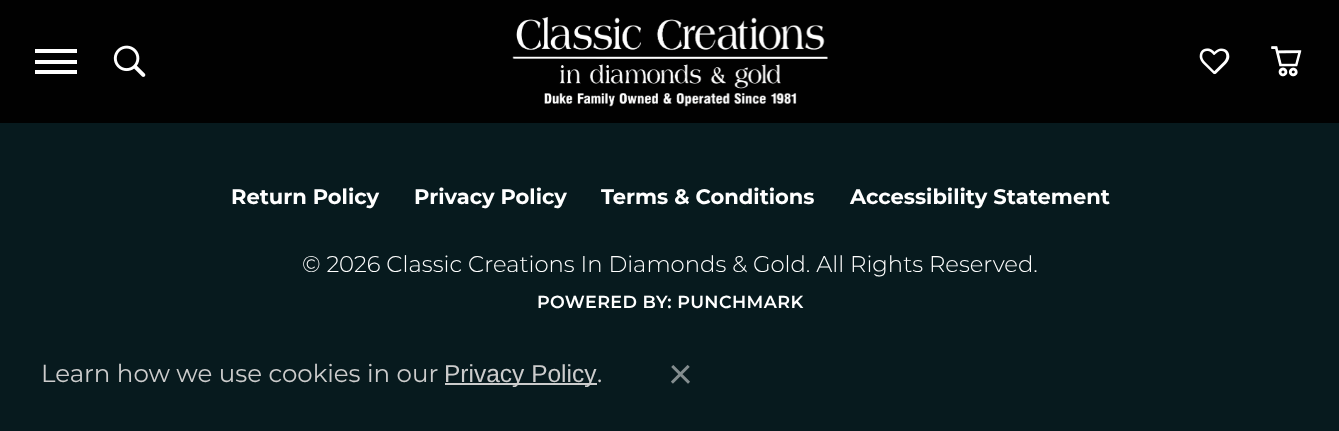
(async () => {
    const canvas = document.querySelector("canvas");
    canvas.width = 1339;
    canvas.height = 431;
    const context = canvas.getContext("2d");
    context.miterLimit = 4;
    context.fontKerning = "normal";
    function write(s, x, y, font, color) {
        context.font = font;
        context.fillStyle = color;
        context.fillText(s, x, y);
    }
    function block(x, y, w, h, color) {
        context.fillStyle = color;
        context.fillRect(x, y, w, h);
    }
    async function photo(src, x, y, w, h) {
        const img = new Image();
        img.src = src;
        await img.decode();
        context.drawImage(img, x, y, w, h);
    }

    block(0, 0, 1339, 431, "rgb(7, 26, 30)");
    block(0, 0, 1339, 123, "rgb(1, 1, 1)");
    block(35, 49, 42, 4, "rgb(255, 255, 255)");
    block(35, 60, 42, 4, "rgb(255, 255, 255)");
    block(35, 70, 42, 4, "rgb(255, 255, 255)");
    await photo("media/1.png", 113, 45, 33, 32);
    await photo("media/2.png", 512, 17, 316, 90);
    await photo("media/3.png", 1199, 48, 31, 27);
    await photo("media/4.png", 1271, 46, 31, 31);
    write("Return Policy", 231, 204, "bold 21px Montserrat", "rgb(255, 255, 255)");
    write("Privacy Policy", 414, 204, "bold 21px Montserrat", "rgb(255, 255, 255)");
    write("Terms & Conditions", 601, 204, "bold 21px Montserrat", "rgb(255, 255, 255)");
    write("Accessibility Statement", 850, 204, "bold 21px Montserrat", "rgb(255, 255, 255)");
    write("© 2026 Classic Creations In Diamonds & Gold. All Rights Reserved.", 302, 272, "300 22.75px Montserrat", "rgb(255, 255, 255)");
    context.letterSpacing = "0.4px";
    write("POWERED BY: PUNCHMARK", 537, 308, "600 17.5px Montserrat", "rgb(255, 255, 255)");
    context.letterSpacing = "0px";
    write("Learn how we use cookies in our", 41, 382, "24.5px Montserrat", "rgb(204, 204, 204)");
    block(445, 383, 152, 2, "rgb(204, 204, 204)");
    write("Privacy Policy", 444, 382, "24.5px Liberation Sans", "rgb(204, 204, 204)");
    write(".", 597, 382, "24.5px Montserrat", "rgb(204, 204, 204)");
    await photo("media/5.png", 671, 365, 19, 19);
})();
